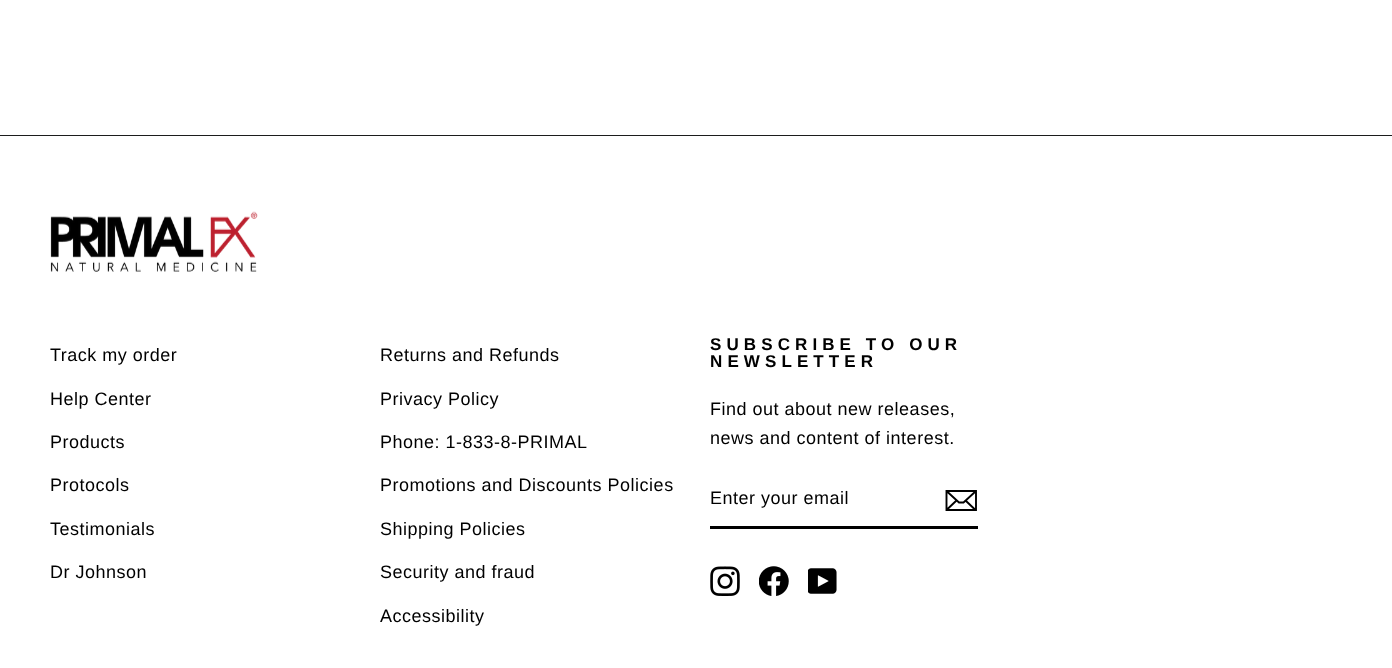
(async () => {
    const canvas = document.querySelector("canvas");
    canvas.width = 1392;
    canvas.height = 668;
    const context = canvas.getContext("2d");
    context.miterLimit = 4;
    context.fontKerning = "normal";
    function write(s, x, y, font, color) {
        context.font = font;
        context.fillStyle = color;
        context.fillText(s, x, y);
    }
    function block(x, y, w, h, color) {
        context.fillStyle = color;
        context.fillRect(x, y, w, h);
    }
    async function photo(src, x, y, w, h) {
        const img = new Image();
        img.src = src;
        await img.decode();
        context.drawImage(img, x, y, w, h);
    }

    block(0, 0, 1392, 668, "rgb(255, 255, 255)");
    block(0, 135, 1392, 1, "rgb(28, 29, 29)");
    await photo("media/1.png", 50, 211, 208, 61);
    context.letterSpacing = "0.5px";
    write("Track my order", 50, 361, "18px Arimo", "rgb(0, 0, 0)");
    write("Help Center", 50, 405, "18px Arimo", "rgb(0, 0, 0)");
    write("Products", 50, 448, "18px Arimo", "rgb(0, 0, 0)");
    write("Protocols", 50, 491, "18px Arimo", "rgb(0, 0, 0)");
    write("Testimonials", 50, 535, "18px Arimo", "rgb(0, 0, 0)");
    write("Dr Johnson", 50, 578, "18px Arimo", "rgb(0, 0, 0)");
    write("Returns and Refunds", 380, 361, "18px Arimo", "rgb(0, 0, 0)");
    write("Privacy Policy", 380, 405, "18px Arimo", "rgb(0, 0, 0)");
    write("Phone: 1-833-8-PRIMAL", 380, 448, "18px Arimo", "rgb(0, 0, 0)");
    write("Promotions and Discounts Policies", 380, 491, "18px Arimo", "rgb(0, 0, 0)");
    write("Shipping Policies", 380, 535, "18px Arimo", "rgb(0, 0, 0)");
    write("Security and fraud", 380, 578, "18px Arimo", "rgb(0, 0, 0)");
    write("Accessibility", 380, 622, "18px Arimo", "rgb(0, 0, 0)");
    context.letterSpacing = "5.1px";
    write("SUBSCRIBE TO OUR", 710, 350, "bold 17px Arimo", "rgb(0, 0, 0)");
    write("NEWSLETTER", 710, 367, "bold 17px Arimo", "rgb(0, 0, 0)");
    context.letterSpacing = "0.5px";
    write("Find out about new releases,", 710, 415, "18px Arimo", "rgb(0, 0, 0)");
    write("news and content of interest.", 710, 444, "18px Arimo", "rgb(0, 0, 0)");
    block(710, 526, 268, 3, "rgb(0, 0, 0)");
    write("Enter your email", 710, 504, "18px Arimo", "rgb(0, 0, 0)");
    context.beginPath();
    context.moveTo(976, 510);
    context.lineTo(946.5, 510);
    context.lineTo(946.5, 491);
    context.lineTo(976, 491);
    context.closePath();
    context.moveTo(946.5, 491);
    context.lineTo(959, 502.5);
    context.lineTo(963.5, 502.5);
    context.lineTo(976, 491);
    context.moveTo(956.5, 500.5);
    context.lineTo(947, 509.5);
    context.moveTo(975.5, 510);
    context.lineTo(965.5, 500.5);
    context.strokeStyle = "rgb(0, 0, 0)";
    context.lineWidth = 1.9;
    context.stroke();
    await photo("media/2.png", 710, 566, 30, 30);
    await photo("media/3.png", 759, 566, 30, 30);
    await photo("media/4.png", 808, 568, 29, 26);
})();
